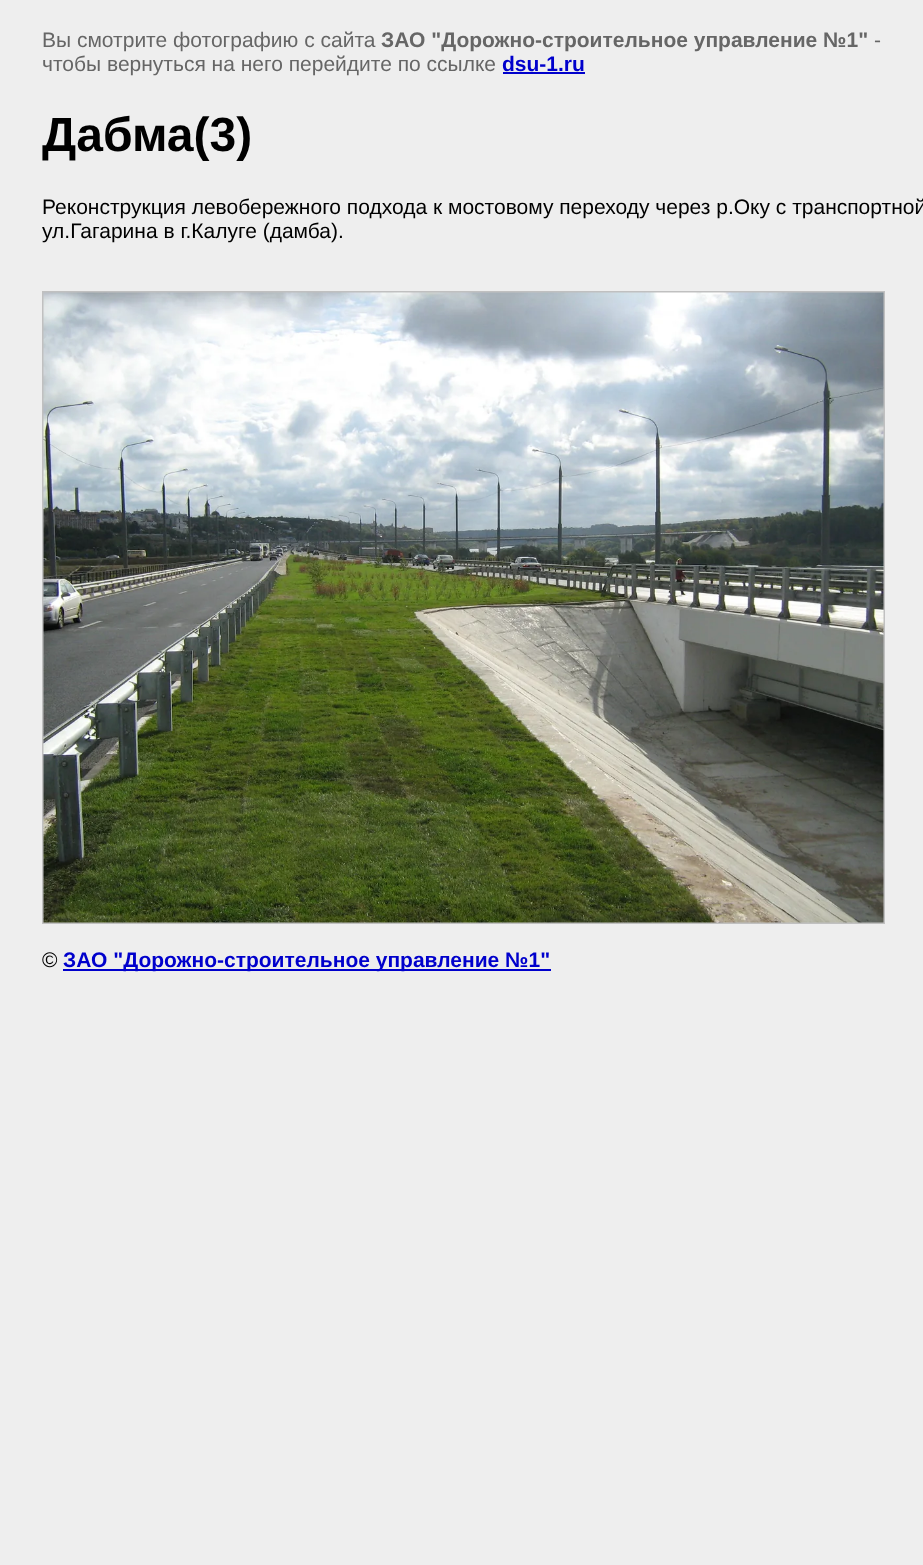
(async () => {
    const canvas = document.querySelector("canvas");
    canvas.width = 923;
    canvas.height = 1565;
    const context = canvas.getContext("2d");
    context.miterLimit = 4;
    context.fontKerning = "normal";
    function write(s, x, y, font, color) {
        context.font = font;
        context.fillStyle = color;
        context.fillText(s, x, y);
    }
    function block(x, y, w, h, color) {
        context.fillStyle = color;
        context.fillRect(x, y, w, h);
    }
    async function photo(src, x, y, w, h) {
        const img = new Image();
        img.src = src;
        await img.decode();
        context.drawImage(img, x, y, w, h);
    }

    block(0, 0, 923, 1565, "rgb(238, 238, 238)");
    write("Вы смотрите фотографию с сайта", 42, 47, "21px Liberation Sans", "rgb(102, 102, 102)");
    write("ЗАО \"Дорожно-строительное управление №1\"", 381, 47, "bold 21px Liberation Sans", "rgb(102, 102, 102)");
    write("-", 874, 47, "21px Liberation Sans", "rgb(102, 102, 102)");
    write("чтобы вернуться на него перейдите по ссылке", 42, 71, "21px Liberation Sans", "rgb(102, 102, 102)");
    write("dsu-1.ru", 502, 71, "bold 21px Liberation Sans", "rgb(0, 0, 204)");
    block(503, 72, 82, 2, "rgb(0, 0, 204)");
    write("Дабма(3)", 42, 151, "bold 48px Liberation Sans", "rgb(0, 0, 0)");
    write("Реконструкция левобережного подхода к мостовому переходу через р.Оку с транспортной", 42, 214, "21px Liberation Sans", "rgb(0, 0, 0)");
    write("ул.Гагарина в г.Калуге (дамба).", 42, 238, "21px Liberation Sans", "rgb(0, 0, 0)");
    context.strokeStyle = "rgb(192, 192, 192)";
    context.lineWidth = 2;
    context.strokeRect(43, 292, 841, 631);
    await photo("media/1.png", 43, 292, 841, 631);
    write("©", 42, 967, "21px Liberation Sans", "rgb(0, 0, 0)");
    block(63, 969, 488, 2, "rgb(0, 0, 204)");
    write("ЗАО \"Дорожно-строительное управление №1\"", 63, 967, "bold 21px Liberation Sans", "rgb(0, 0, 204)");
})();
